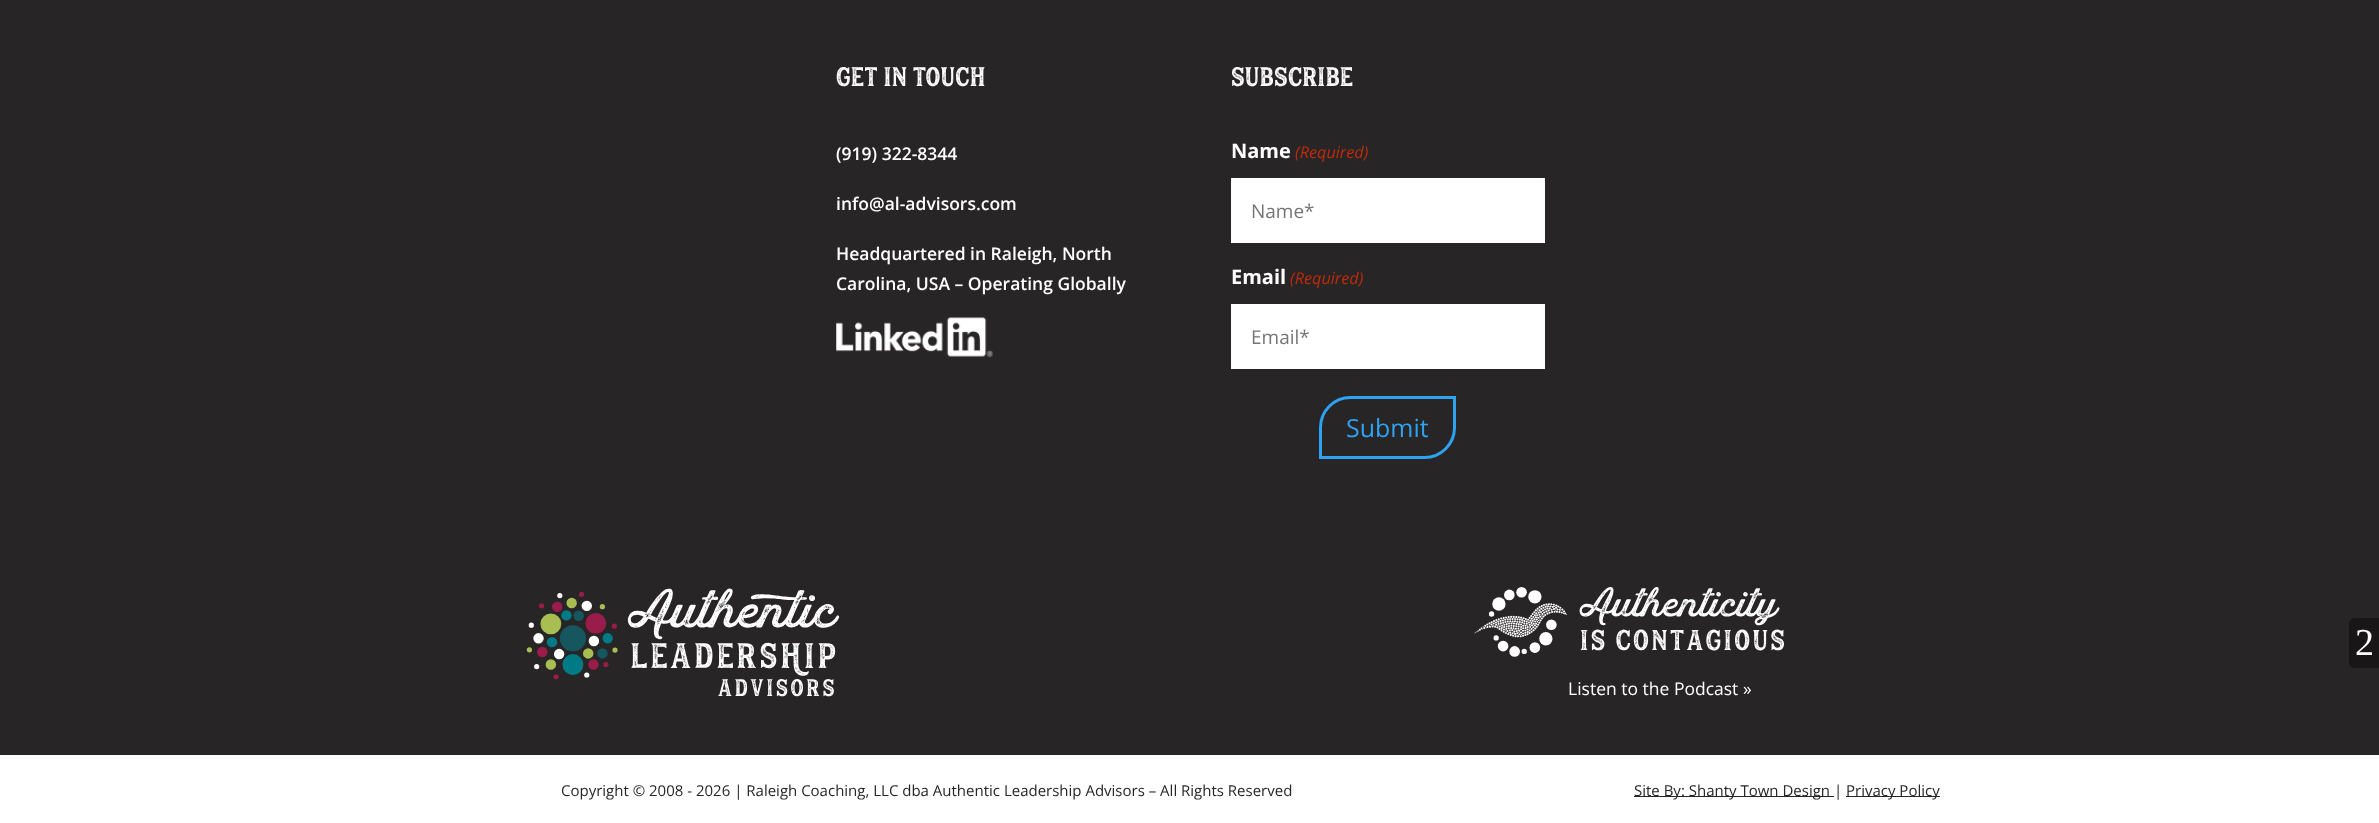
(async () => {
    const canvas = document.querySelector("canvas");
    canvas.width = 2379;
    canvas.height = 823;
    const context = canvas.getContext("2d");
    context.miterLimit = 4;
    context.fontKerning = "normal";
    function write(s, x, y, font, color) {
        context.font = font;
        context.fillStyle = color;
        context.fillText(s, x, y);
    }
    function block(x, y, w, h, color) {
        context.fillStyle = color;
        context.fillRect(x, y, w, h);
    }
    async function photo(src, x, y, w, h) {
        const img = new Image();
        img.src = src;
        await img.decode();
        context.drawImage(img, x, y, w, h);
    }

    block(0, 0, 2379, 823, "rgb(255, 255, 255)");
    block(0, 0, 2379, 755, "rgb(40, 37, 38)");
    write("Get In Touch", 836, 86, "25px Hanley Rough", "rgb(255, 255, 255)");
    write("(919) 322-8344", 836, 160, "600 17.5px Open Sans", "rgb(255, 255, 255)");
    write("info@al-advisors.com", 836, 210, "600 17.5px Open Sans", "rgb(255, 255, 255)");
    write("Headquartered in Raleigh, North", 836, 260, "600 17.5px Open Sans", "rgb(255, 255, 255)");
    write("Carolina, USA – Operating Globally", 836, 290, "600 17.5px Open Sans", "rgb(255, 255, 255)");
    await photo("media/1.png", 836, 317, 157, 41);
    write("Subscribe", 1231, 86, "25px Hanley Rough", "rgb(255, 255, 255)");
    write("Name", 1231, 158, "bold 20px Open Sans", "rgb(255, 255, 255)");
    write("(Required)", 1295, 158, "italic 16.25px Open Sans", "rgb(192, 43, 10)");
    block(1231, 178, 314, 65, "rgb(255, 255, 255)");
    write("Name*", 1251, 218, "19px Open Sans", "rgb(117, 117, 117)");
    write("Email", 1231, 284, "bold 20px Open Sans", "rgb(255, 255, 255)");
    write("(Required)", 1290, 284, "italic 16.25px Open Sans", "rgb(192, 43, 10)");
    block(1231, 304, 314, 65, "rgb(255, 255, 255)");
    write("Email*", 1251, 344, "19px Open Sans", "rgb(117, 117, 117)");
    context.beginPath();
    context.roundRect(1320.5, 397.5, 134, 60, [30, 0, 30, 0]);
    context.strokeStyle = "rgb(46, 163, 242)";
    context.lineWidth = 3;
    context.stroke();
    write("Submit", 1346, 437, "25px Open Sans", "rgb(46, 163, 242)");
    await photo("media/2.png", 526, 588, 314, 109);
    await photo("media/3.png", 1474, 587, 310, 70);
    write("Listen to the Podcast »", 1568, 695, "17.5px Open Sans", "rgb(255, 255, 255)");
    write("Copyright © 2008 - 2026 | Raleigh Coaching, LLC dba Authentic Leadership Advisors – All Rights Reserved", 561, 796, "15px Open Sans", "rgb(40, 37, 38)");
    block(1634, 796, 200, 1, "rgb(40, 37, 38)");
    write("Site By: Shanty Town Design |", 1634, 796, "15px Open Sans", "rgb(40, 37, 38)");
    block(1846, 796, 94, 1, "rgb(40, 37, 38)");
    write("Privacy Policy", 1846, 796, "15px Open Sans", "rgb(40, 37, 38)");
    context.fillStyle = "rgb(24, 22, 23)";
    context.beginPath();
    context.moveTo(2355, 618);
    context.lineTo(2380, 618);
    context.lineTo(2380, 668);
    context.lineTo(2355, 668);
    context.bezierCurveTo(2351.5, 668, 2349, 665.5, 2349, 662);
    context.lineTo(2349, 624);
    context.bezierCurveTo(2349, 620.5, 2351.5, 618, 2355, 618);
    context.closePath();
    context.fill();
    write("2", 2355, 655, "38px Liberation Serif", "rgb(255, 255, 255)");
})();
